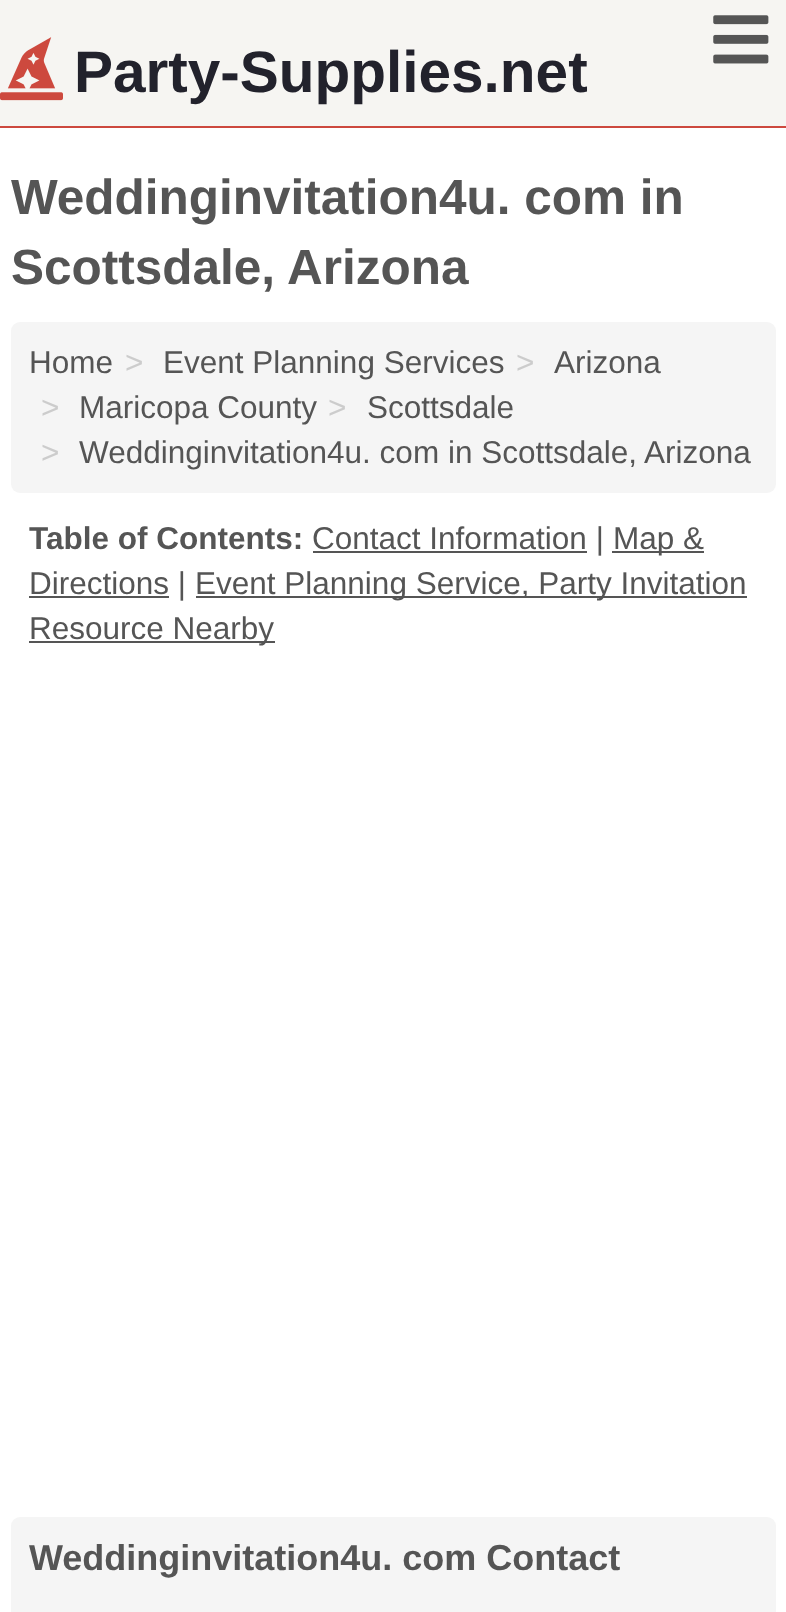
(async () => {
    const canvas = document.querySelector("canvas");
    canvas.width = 786;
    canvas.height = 1612;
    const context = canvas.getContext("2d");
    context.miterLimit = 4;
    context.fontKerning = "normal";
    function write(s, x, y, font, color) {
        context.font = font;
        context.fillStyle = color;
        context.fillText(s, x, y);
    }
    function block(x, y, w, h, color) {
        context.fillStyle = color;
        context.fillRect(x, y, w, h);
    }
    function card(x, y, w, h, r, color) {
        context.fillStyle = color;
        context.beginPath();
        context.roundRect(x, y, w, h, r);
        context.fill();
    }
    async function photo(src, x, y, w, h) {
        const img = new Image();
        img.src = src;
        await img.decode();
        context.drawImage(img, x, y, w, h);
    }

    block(0, 0, 786, 1612, "rgb(255, 255, 255)");
    block(0, 0, 786, 126, "rgb(246, 245, 242)");
    block(0, 126, 786, 2, "rgb(205, 73, 62)");
    await photo("media/1.png", 713, 15, 56, 49);
    await photo("media/2.png", 0, 37, 63, 64);
    write("Party-Supplies.net", 74, 92, "bold 58.5px Liberation Sans", "rgb(34, 34, 44)");
    write("Weddinginvitation4u. com in", 11, 214, "bold 49.5px Liberation Sans", "rgb(85, 85, 85)");
    write("Scottsdale, Arizona", 11, 284, "bold 49.5px Liberation Sans", "rgb(85, 85, 85)");
    card(11, 322, 765, 171, 9, "rgb(245, 245, 245)");
    write("Home", 29, 373, "31.5px Liberation Sans", "rgb(85, 85, 85)");
    write(">", 125, 373, "31.5px Liberation Sans", "rgb(204, 204, 204)");
    write("Event Planning Services", 163, 373, "31.5px Liberation Sans", "rgb(85, 85, 85)");
    write(">", 516, 373, "31.5px Liberation Sans", "rgb(204, 204, 204)");
    write("Arizona", 554, 373, "31.5px Liberation Sans", "rgb(85, 85, 85)");
    write(">", 41, 418, "31.5px Liberation Sans", "rgb(204, 204, 204)");
    write("Maricopa County", 79, 418, "31.5px Liberation Sans", "rgb(85, 85, 85)");
    write(">", 328, 418, "31.5px Liberation Sans", "rgb(204, 204, 204)");
    write("Scottsdale", 367, 418, "31.5px Liberation Sans", "rgb(85, 85, 85)");
    write(">", 41, 463, "31.5px Liberation Sans", "rgb(204, 204, 204)");
    write("Weddinginvitation4u. com in Scottsdale, Arizona", 79, 463, "31.5px Liberation Sans", "rgb(85, 85, 85)");
    write("Table of Contents:", 29, 549, "bold 31.5px Liberation Sans", "rgb(85, 85, 85)");
    block(313, 551, 274, 2, "rgb(85, 85, 85)");
    write("Contact Information |", 312, 549, "31.5px Liberation Sans", "rgb(85, 85, 85)");
    block(612, 551, 92, 2, "rgb(85, 85, 85)");
    write("Map &", 613, 549, "31.5px Liberation Sans", "rgb(85, 85, 85)");
    block(29, 596, 140, 2, "rgb(85, 85, 85)");
    write("Directions |", 29, 594, "31.5px Liberation Sans", "rgb(85, 85, 85)");
    block(196, 596, 551, 2, "rgb(85, 85, 85)");
    write("Event Planning Service, Party Invitation", 195, 594, "31.5px Liberation Sans", "rgb(85, 85, 85)");
    block(29, 641, 246, 2, "rgb(85, 85, 85)");
    write("Resource Nearby", 29, 639, "31.5px Liberation Sans", "rgb(85, 85, 85)");
    card(11, 1517, 765, 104, 9, "rgb(245, 245, 245)");
    write("Weddinginvitation4u. com Contact", 29, 1570, "bold 36px Liberation Sans", "rgb(85, 85, 85)");
})();
